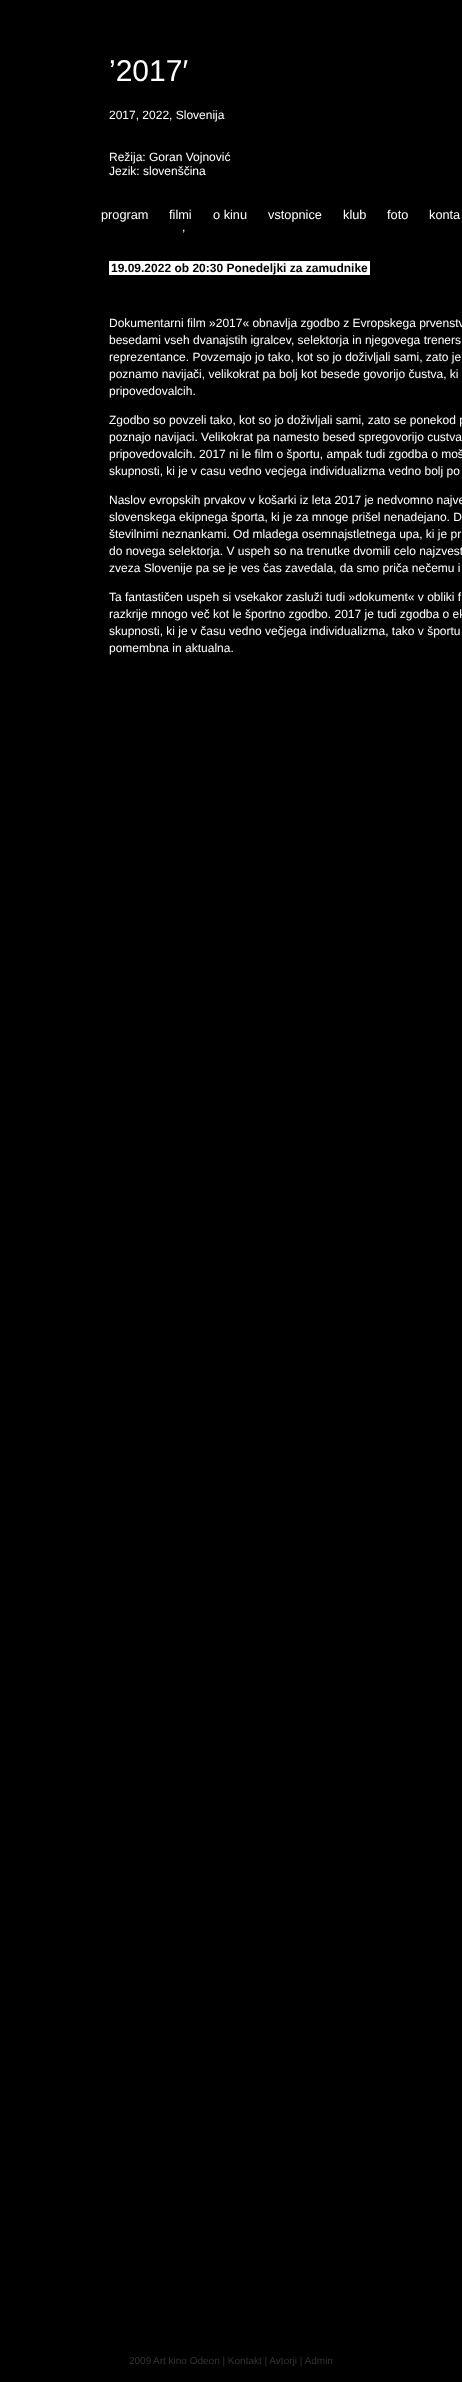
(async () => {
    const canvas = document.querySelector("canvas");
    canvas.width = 462;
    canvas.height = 2382;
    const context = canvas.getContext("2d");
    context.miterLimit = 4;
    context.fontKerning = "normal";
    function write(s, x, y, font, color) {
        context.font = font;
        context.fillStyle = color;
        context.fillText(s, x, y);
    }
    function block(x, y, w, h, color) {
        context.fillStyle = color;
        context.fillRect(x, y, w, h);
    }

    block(0, 0, 462, 2382, "rgb(0, 0, 0)");
    write("’2017′", 109, 81, "30px Liberation Sans", "rgb(255, 255, 255)");
    write("2017, 2022, Slovenija", 109, 119, "12px Liberation Sans", "rgb(255, 255, 255)");
    write("Režija: Goran Vojnović", 109, 161, "12px Liberation Sans", "rgb(255, 255, 255)");
    write("Jezik: slovenščina", 109, 175, "12px Liberation Sans", "rgb(255, 255, 255)");
    write(",", 182, 231, "12px Liberation Sans", "rgb(255, 255, 255)");
    block(109, 261, 261, 14, "rgb(255, 255, 255)");
    write("19.09.2022 ob 20:30 Ponedeljki za zamudnike", 111, 272, "bold 12px Liberation Sans", "rgb(0, 0, 0)");
    write("Dokumentarni film »2017« obnavlja zgodbo z Evropskega prvenstv", 109, 327, "12px Liberation Sans", "rgb(255, 255, 255)");
    write("besedami vseh dvanajstih igralcev, selektorja in njegovega treners", 109, 344, "12px Liberation Sans", "rgb(255, 255, 255)");
    write("reprezentance. Povzemajo jo tako, kot so jo doživljali sami, zato je", 109, 361, "12px Liberation Sans", "rgb(255, 255, 255)");
    write("poznamo navijači, velikokrat pa bolj kot besede govorijo čustva, ki", 109, 378, "12px Liberation Sans", "rgb(255, 255, 255)");
    write("pripovedovalcih.", 109, 395, "12px Liberation Sans", "rgb(255, 255, 255)");
    write("Zgodbo so povzeli tako, kot so jo doživljali sami, zato se ponekod p", 109, 424, "12px Liberation Sans", "rgb(255, 255, 255)");
    write("poznajo navijaci. Velikokrat pa namesto besed spregovorijo custva", 109, 441, "12px Liberation Sans", "rgb(255, 255, 255)");
    write("pripovedovalcih. 2017 ni le film o športu, ampak tudi zgodba o moš", 109, 458, "12px Liberation Sans", "rgb(255, 255, 255)");
    write("skupnosti, ki je v casu vedno vecjega individualizma vedno bolj po", 109, 475, "12px Liberation Sans", "rgb(255, 255, 255)");
    write("Naslov evropskih prvakov v košarki iz leta 2017 je nedvomno najve", 109, 504, "12px Liberation Sans", "rgb(255, 255, 255)");
    write("slovenskega ekipnega športa, ki je za mnoge prišel nenadejano. D", 109, 521, "12px Liberation Sans", "rgb(255, 255, 255)");
    write("številnimi neznankami. Od mladega osemnajstletnega upa, ki je pr", 109, 538, "12px Liberation Sans", "rgb(255, 255, 255)");
    write("do novega selektorja. V uspeh so na trenutke dvomili celo najzvest", 109, 555, "12px Liberation Sans", "rgb(255, 255, 255)");
    write("zveza Slovenije pa se je ves čas zavedala, da smo priča nečemu i", 109, 572, "12px Liberation Sans", "rgb(255, 255, 255)");
    write("Ta fantastičen uspeh si vsekakor zasluži tudi »dokument« v obliki f", 109, 601, "12px Liberation Sans", "rgb(255, 255, 255)");
    write("razkrije mnogo več kot le športno zgodbo. 2017 je tudi zgodba o ek", 109, 618, "12px Liberation Sans", "rgb(255, 255, 255)");
    write("skupnosti, ki je v času vedno večjega individualizma, tako v športu", 109, 635, "12px Liberation Sans", "rgb(255, 255, 255)");
    write("pomembna in aktualna.", 109, 652, "12px Liberation Sans", "rgb(255, 255, 255)");
    write("2009", 129, 2364, "10px Liberation Sans", "rgb(51, 51, 51)");
    write("Art kino Odeon | Kontakt | Avtorji | Admin", 153, 2364, "10px Liberation Sans", "rgb(51, 51, 51)");
    write("program", 101, 219, "12.75px Liberation Sans", "rgb(255, 255, 255)");
    write("filmi", 169, 219, "12.75px Liberation Sans", "rgb(255, 255, 255)");
    write("o kinu", 213, 219, "12.75px Liberation Sans", "rgb(255, 255, 255)");
    write("vstopnice", 268, 219, "12.75px Liberation Sans", "rgb(255, 255, 255)");
    write("klub", 343, 219, "12.75px Liberation Sans", "rgb(255, 255, 255)");
    write("foto", 387, 219, "12.75px Liberation Sans", "rgb(255, 255, 255)");
    write("konta", 429, 219, "12.75px Liberation Sans", "rgb(255, 255, 255)");
})();
